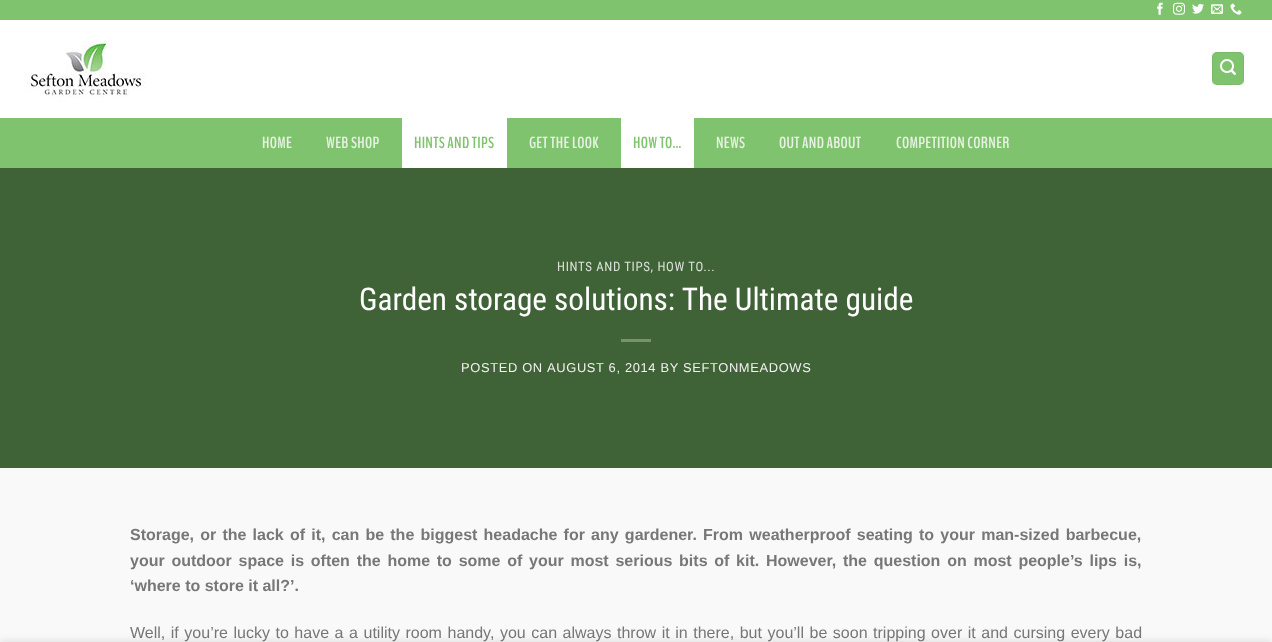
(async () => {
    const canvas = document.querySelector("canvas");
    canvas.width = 1272;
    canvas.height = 642;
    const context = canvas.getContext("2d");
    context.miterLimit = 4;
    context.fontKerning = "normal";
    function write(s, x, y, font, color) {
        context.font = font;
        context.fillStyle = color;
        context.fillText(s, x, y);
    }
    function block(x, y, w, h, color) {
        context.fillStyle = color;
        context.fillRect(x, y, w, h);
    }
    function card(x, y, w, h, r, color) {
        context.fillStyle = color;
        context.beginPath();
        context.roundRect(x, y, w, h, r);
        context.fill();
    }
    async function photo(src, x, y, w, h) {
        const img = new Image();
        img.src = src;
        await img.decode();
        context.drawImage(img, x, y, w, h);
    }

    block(0, 0, 1272, 642, "rgb(249, 249, 249)");
    block(0, 0, 1272, 20, "rgb(128, 195, 110)");
    await photo("media/1.png", 1157, 2, 6, 13);
    await photo("media/2.png", 1173, 2, 12, 13);
    await photo("media/3.png", 1192, 3, 12, 11);
    await photo("media/4.png", 1211, 4, 12, 10);
    await photo("media/5.png", 1230, 3, 12, 12);
    block(0, 20, 1272, 98, "rgb(255, 255, 255)");
    await photo("media/6.png", 26, 41, 120, 56);
    card(1212, 52, 32, 33, 5, "rgb(128, 195, 110)");
    context.strokeStyle = "rgba(0, 0, 0, 0.05)";
    context.strokeRect(1212.5, 52.5, 31, 32);
    await photo("media/7.png", 1220, 59, 16, 16);
    block(0, 118, 1272, 50, "rgb(128, 195, 110)");
    context.letterSpacing = "0.3px";
    write("HOME", 262, 148, "bold 16px BenchNine", "rgb(230, 243, 226)");
    write("WEB SHOP", 326, 148, "bold 16px BenchNine", "rgb(230, 243, 226)");
    block(402, 118, 105, 50, "rgb(255, 255, 255)");
    write("HINTS AND TIPS", 414, 148, "bold 16px BenchNine", "rgb(128, 195, 110)");
    write("GET THE LOOK", 529, 148, "bold 16px BenchNine", "rgb(230, 243, 226)");
    block(621, 118, 73, 50, "rgb(255, 255, 255)");
    write("HOW TO…", 633, 148, "bold 16px BenchNine", "rgb(128, 195, 110)");
    write("NEWS", 716, 148, "bold 16px BenchNine", "rgb(230, 243, 226)");
    write("OUT AND ABOUT", 779, 148, "bold 16px BenchNine", "rgb(230, 243, 226)");
    write("COMPETITION CORNER", 896, 148, "bold 16px BenchNine", "rgb(230, 243, 226)");
    block(0, 168, 1272, 300, "rgb(64, 98, 55)");
    context.letterSpacing = "0.65px";
    write("HINTS AND TIPS, HOW TO...", 557, 271, "12.9px Roboto Condensed", "rgb(217, 224, 215)");
    context.letterSpacing = "0px";
    write("Garden storage solutions: The Ultimate guide", 359, 310, "31.25px Roboto Condensed", "rgb(255, 255, 255)");
    block(621, 339, 30, 3, "rgb(121, 145, 115)");
    context.letterSpacing = "0.65px";
    write("POSTED ON", 461, 372, "12.9px Liberation Sans", "rgb(241, 241, 241)");
    write("AUGUST 6, 2014 BY SEFTONMEADOWS", 547, 372, "12.9px Liberation Sans", "rgb(241, 241, 241)");
    context.letterSpacing = "0px";
    context.wordSpacing = "1.75px";
    write("Storage, or the lack of it, can be the biggest headache for any gardener. From weatherproof seating to your man-sized barbecue,", 130, 540, "bold 16px Liberation Sans", "rgb(119, 119, 119)");
    context.wordSpacing = "2.3px";
    write("your outdoor space is often the home to some of your most serious bits of kit. However, the question on most people’s lips is,", 130, 566, "bold 16px Liberation Sans", "rgb(119, 119, 119)");
    context.wordSpacing = "0px";
    write("‘where to store it all?’.", 130, 591, "bold 16px Liberation Sans", "rgb(119, 119, 119)");
    context.wordSpacing = "1.1px";
    write("Well, if you’re lucky to have a a utility room handy, you can always throw it in there, but you’ll be soon tripping over it and cursing every bad", 130, 638, "16px Liberation Sans", "rgb(119, 119, 119)");
    context.fillStyle = "rgba(0, 0, 0, 0.14)";
    context.filter = "blur(4.5px)";
    context.beginPath();
    context.rect(0, 642, 1272, 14);
    context.fill();
    context.filter = "none";
})();
